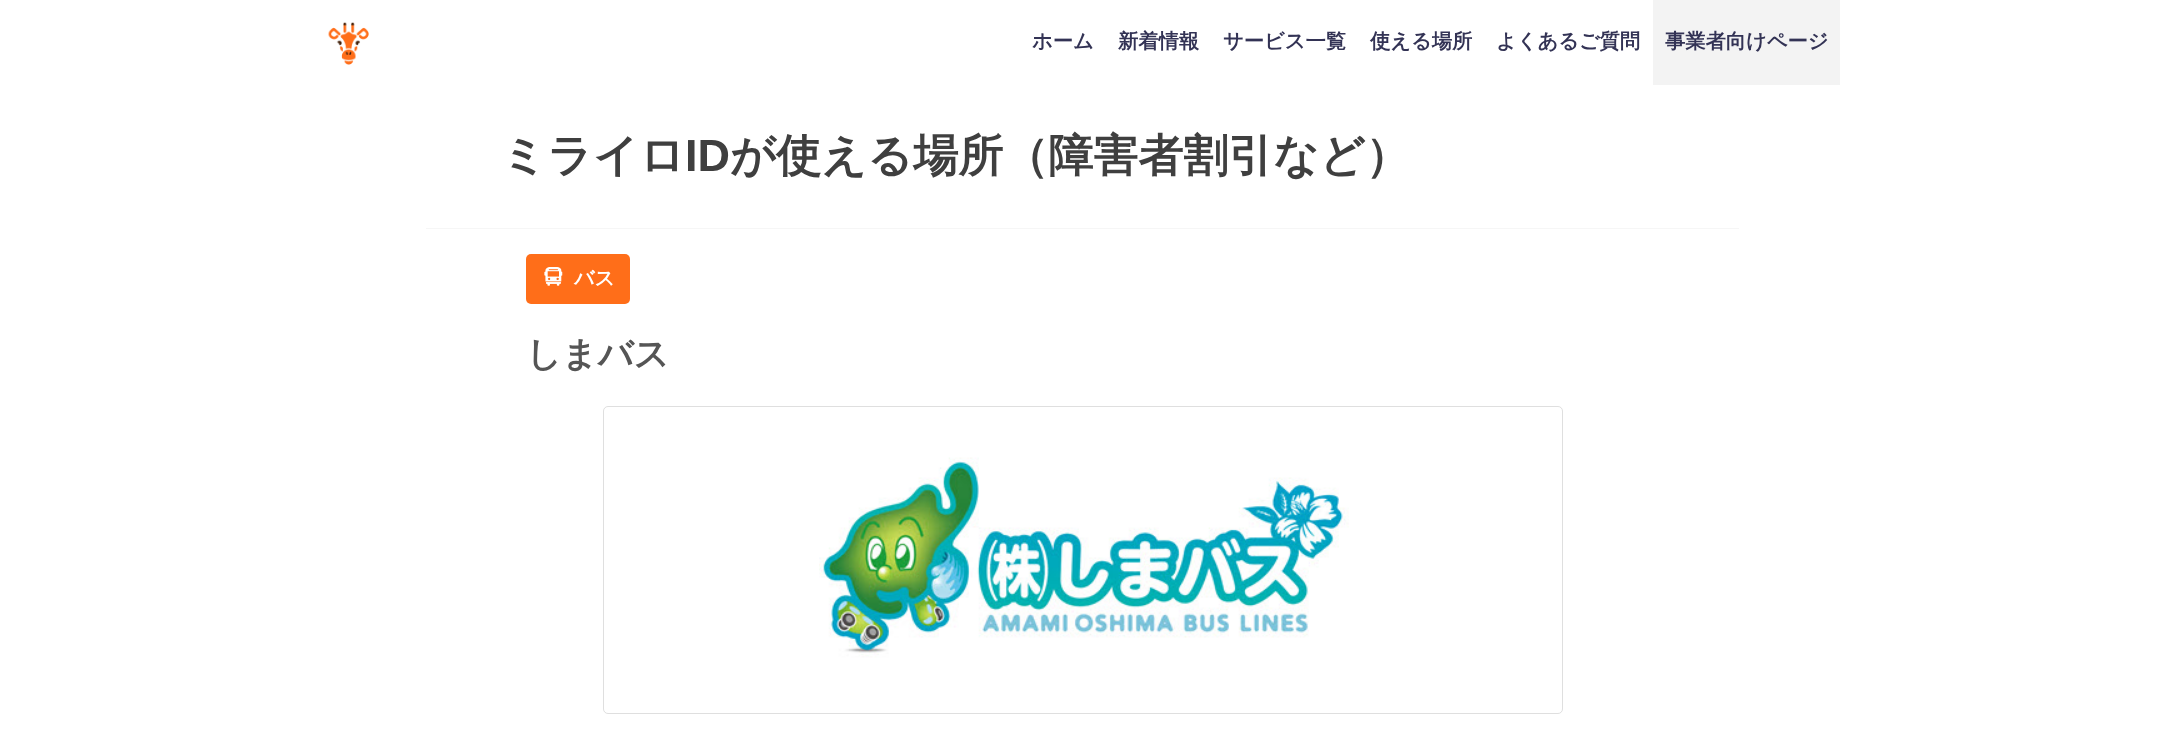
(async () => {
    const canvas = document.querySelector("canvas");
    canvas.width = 2164;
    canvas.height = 731;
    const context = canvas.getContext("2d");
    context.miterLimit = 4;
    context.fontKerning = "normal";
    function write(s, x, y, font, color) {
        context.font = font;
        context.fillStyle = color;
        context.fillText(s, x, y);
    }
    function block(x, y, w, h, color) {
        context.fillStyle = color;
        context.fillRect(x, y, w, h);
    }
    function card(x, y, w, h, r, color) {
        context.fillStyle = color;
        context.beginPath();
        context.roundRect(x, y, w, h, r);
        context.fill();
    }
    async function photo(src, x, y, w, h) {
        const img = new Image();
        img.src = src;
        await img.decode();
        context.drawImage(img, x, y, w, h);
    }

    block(0, 0, 2164, 731, "rgb(255, 255, 255)");
    await photo("media/1.png", 328, 22, 41, 43);
    write("ホーム", 1032, 48, "bold 20.25px WenQuanYi Zen Hei", "rgb(51, 51, 85)");
    write("新着情報", 1118, 48, "bold 20.25px WenQuanYi Zen Hei", "rgb(51, 51, 85)");
    write("サービス一覧", 1223, 48, "bold 20.25px WenQuanYi Zen Hei", "rgb(51, 51, 85)");
    write("使える場所", 1370, 48, "bold 20.25px WenQuanYi Zen Hei", "rgb(51, 51, 85)");
    write("よくあるご質問", 1496, 48, "bold 20.25px WenQuanYi Zen Hei", "rgb(51, 51, 85)");
    block(1653, 0, 187, 85, "rgb(243, 243, 243)");
    write("事業者向けページ", 1665, 48, "bold 20.25px WenQuanYi Zen Hei", "rgb(51, 51, 85)");
    write("ミライロ", 501, 171, "bold 45px WenQuanYi Zen Hei", "rgb(63, 63, 63)");
    write("ID", 685, 171, "bold 45px Liberation Sans", "rgb(63, 63, 63)");
    write("が使える場所（障害者割引など）", 730, 171, "bold 45px WenQuanYi Zen Hei", "rgb(63, 63, 63)");
    block(426, 228, 1313, 1, "rgb(246, 246, 246)");
    card(526, 254, 104, 50, 5, "rgb(255, 110, 25)");
    await photo("media/2.png", 544, 267, 19, 19);
    write("バス", 574, 285, "bold 20px WenQuanYi Zen Hei", "rgb(255, 255, 255)");
    write("しまバス", 526, 366, "bold 35px WenQuanYi Zen Hei", "rgb(85, 85, 85)");
    context.beginPath();
    context.roundRect(603.5, 406.5, 959, 307, 4.5);
    context.strokeStyle = "rgb(223, 223, 223)";
    context.stroke();
    await photo("media/3.png", 819, 457, 530, 201);
})();
